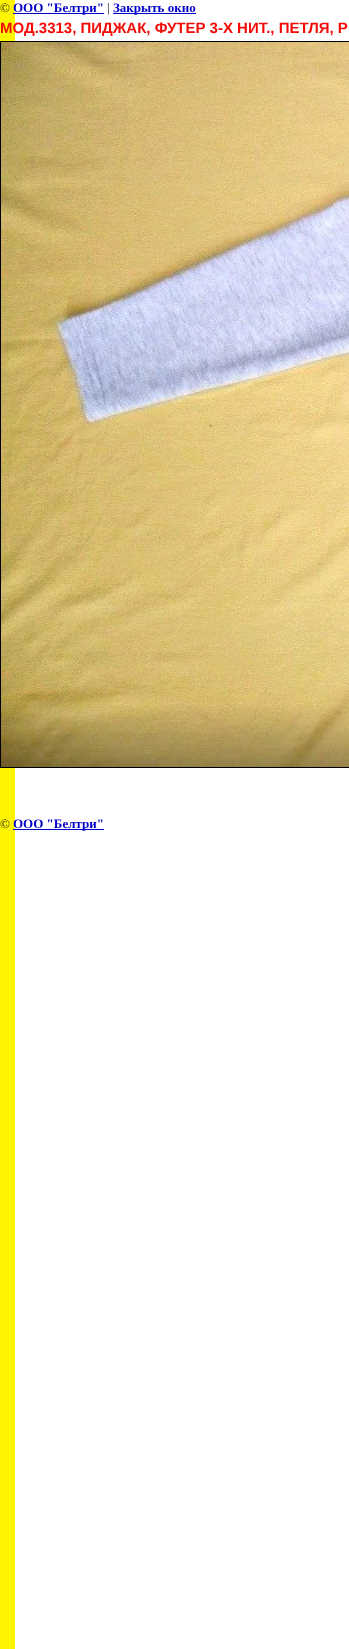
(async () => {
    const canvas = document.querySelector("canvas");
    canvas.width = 349;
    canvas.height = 1649;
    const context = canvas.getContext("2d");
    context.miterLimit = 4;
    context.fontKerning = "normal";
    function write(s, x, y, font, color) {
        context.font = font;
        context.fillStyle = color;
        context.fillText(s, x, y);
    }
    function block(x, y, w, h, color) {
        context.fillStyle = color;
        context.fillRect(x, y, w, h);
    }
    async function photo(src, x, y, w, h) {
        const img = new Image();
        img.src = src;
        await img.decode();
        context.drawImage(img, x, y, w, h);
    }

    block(0, 0, 349, 1649, "rgb(255, 245, 0)");
    block(15, 0, 334, 1649, "rgb(255, 255, 255)");
    write("©", 0, 12, "13px Liberation Serif", "rgb(32, 32, 31)");
    block(13, 13, 91, 1, "rgb(0, 0, 204)");
    write("ООО \"Белтри\"", 13, 12, "bold 13px Liberation Serif", "rgb(0, 0, 204)");
    write("|", 107, 12, "13px Liberation Serif", "rgb(32, 32, 31)");
    block(113, 13, 83, 1, "rgb(0, 0, 204)");
    write("Закрыть окно", 113, 12, "bold 13px Liberation Serif", "rgb(0, 0, 204)");
    write("МОД.3313, ПИДЖАК, ФУТЕР 3-Х НИТ., ПЕТЛЯ, Р", 0, 33, "bold 15px Liberation Sans", "rgb(243, 11, 7)");
    context.strokeStyle = "rgb(0, 0, 0)";
    context.strokeRect(0.5, 41.5, 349, 726);
    await photo("media/1.png", 1, 42, 348, 725);
    write("©", 0, 828, "13px Liberation Serif", "rgb(32, 32, 31)");
    block(13, 829, 91, 1, "rgb(0, 0, 204)");
    write("ООО \"Белтри\"", 13, 828, "bold 13px Liberation Serif", "rgb(0, 0, 204)");
})();
